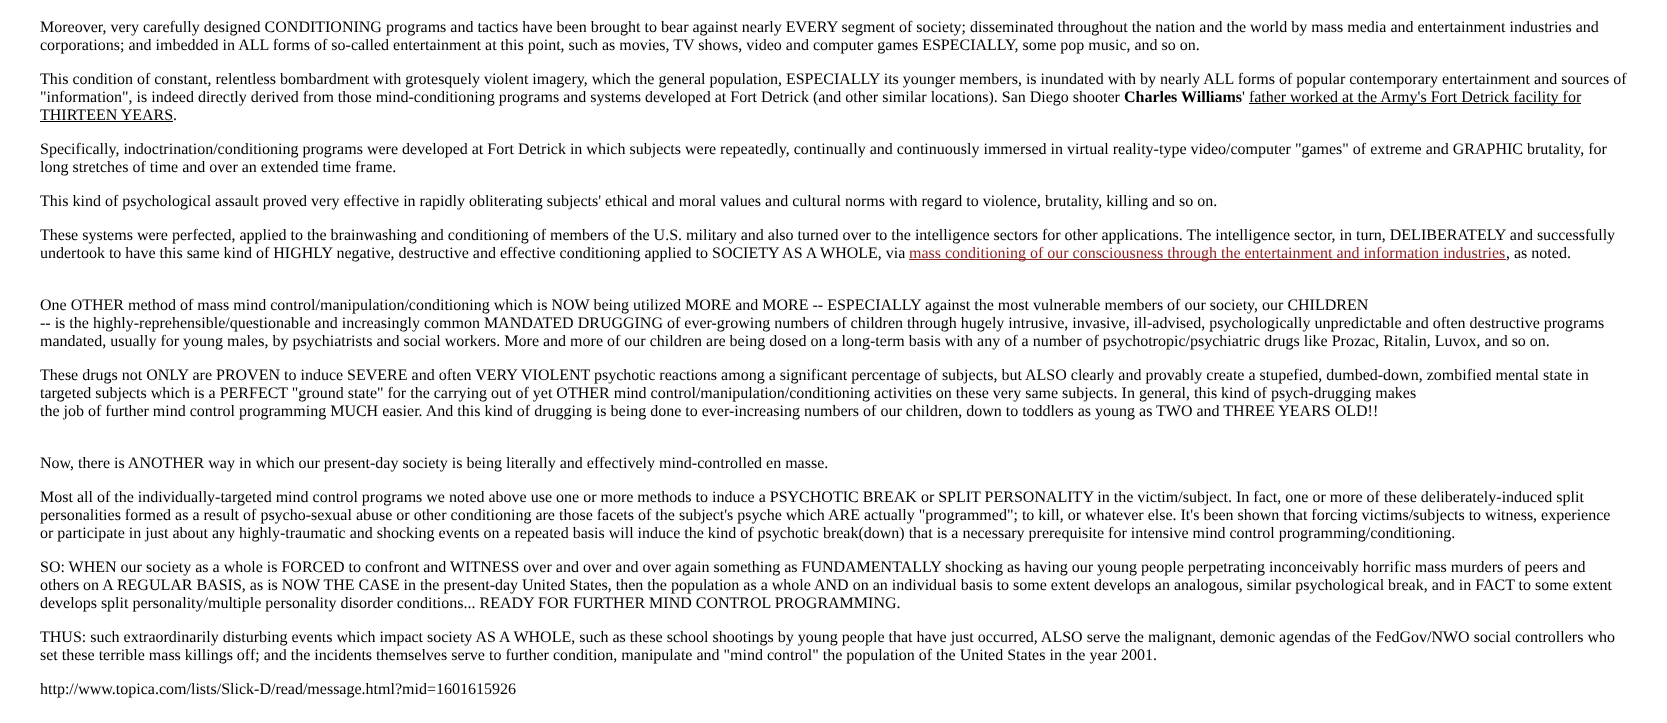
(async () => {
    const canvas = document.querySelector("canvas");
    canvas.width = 1667;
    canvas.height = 723;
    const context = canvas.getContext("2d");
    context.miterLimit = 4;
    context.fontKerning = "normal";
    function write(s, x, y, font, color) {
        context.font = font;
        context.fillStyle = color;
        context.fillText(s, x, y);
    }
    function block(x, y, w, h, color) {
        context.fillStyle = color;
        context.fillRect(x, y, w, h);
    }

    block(0, 0, 1667, 723, "rgb(255, 255, 255)");
    write("Moreover, very carefully designed CONDITIONING programs and tactics have been brought to bear against nearly EVERY segment of society; disseminated throughout the nation and the world by mass media and entertainment industries and", 40, 32, "16px Liberation Serif", "rgb(0, 0, 0)");
    write("corporations; and imbedded in ALL forms of so-called entertainment at this point, such as movies, TV shows, video and computer games ESPECIALLY, some pop music, and so on.", 40, 50, "16px Liberation Serif", "rgb(0, 0, 0)");
    write("This condition of constant, relentless bombardment with grotesquely violent imagery, which the general population, ESPECIALLY its younger members, is inundated with by nearly ALL forms of popular contemporary entertainment and sources of", 40, 84, "16px Liberation Serif", "rgb(0, 0, 0)");
    write("\"information\", is indeed directly derived from those mind-conditioning programs and systems developed at Fort Detrick (and other similar locations). San Diego shooter", 40, 102, "16px Liberation Serif", "rgb(0, 0, 0)");
    write("Charles Williams", 1124, 102, "bold 16px Liberation Serif", "rgb(0, 0, 0)");
    write("' father", 1242, 102, "16px Liberation Serif", "rgb(0, 0, 0)");
    block(1249, 103, 332, 1, "rgb(0, 0, 0)");
    write("worked at the Army's Fort Detrick facility for", 1290, 102, "16px Liberation Serif", "rgb(0, 0, 0)");
    write("THIRTEEN YEARS.", 40, 120, "16px Liberation Serif", "rgb(0, 0, 0)");
    block(40, 121, 133, 1, "rgb(0, 0, 0)");
    write("Specifically, indoctrination/conditioning programs were developed at Fort Detrick in which subjects were repeatedly, continually and continuously immersed in virtual reality-type video/computer \"games\" of extreme and GRAPHIC brutality, for", 40, 154, "16px Liberation Serif", "rgb(0, 0, 0)");
    write("long stretches of time and over an extended time frame.", 40, 172, "16px Liberation Serif", "rgb(0, 0, 0)");
    write("This kind of psychological assault proved very effective in rapidly obliterating subjects' ethical and moral values and cultural norms with regard to violence, brutality, killing and so on.", 40, 206, "16px Liberation Serif", "rgb(0, 0, 0)");
    write("These systems were perfected, applied to the brainwashing and conditioning of members of the U.S. military and also turned over to the intelligence sectors for other applications. The intelligence sector, in turn, DELIBERATELY and successfully", 40, 240, "16px Liberation Serif", "rgb(0, 0, 0)");
    write("undertook to have this same kind of HIGHLY negative, destructive and effective conditioning applied to SOCIETY AS A WHOLE, via", 40, 258, "16px Liberation Serif", "rgb(0, 0, 0)");
    block(909, 259, 597, 1, "rgb(142, 35, 35)");
    write("mass conditioning of our consciousness through the entertainment and information industries", 909, 258, "16px Liberation Serif", "rgb(142, 35, 35)");
    write(", as noted.", 1506, 258, "16px Liberation Serif", "rgb(0, 0, 0)");
    write("One OTHER method of mass mind control/manipulation/conditioning which is NOW being utilized MORE and MORE -- ESPECIALLY against the most vulnerable members of our society, our CHILDREN", 40, 310, "16px Liberation Serif", "rgb(0, 0, 0)");
    write("-- is the highly-reprehensible/questionable and increasingly common MANDATED DRUGGING of ever-growing numbers of children through hugely intrusive, invasive, ill-advised, psychologically unpredictable and often destructive programs", 40, 328, "16px Liberation Serif", "rgb(0, 0, 0)");
    write("mandated, usually for young males, by psychiatrists and social workers. More and more of our children are being dosed on a long-term basis with any of a number of psychotropic/psychiatric drugs like Prozac, Ritalin, Luvox, and so on.", 40, 346, "16px Liberation Serif", "rgb(0, 0, 0)");
    write("These drugs not ONLY are PROVEN to induce SEVERE and often VERY VIOLENT psychotic reactions among a significant percentage of subjects, but ALSO clearly and provably create a stupefied, dumbed-down, zombified mental state in", 40, 380, "16px Liberation Serif", "rgb(0, 0, 0)");
    write("targeted subjects which is a PERFECT \"ground state\" for the carrying out of yet OTHER mind control/manipulation/conditioning activities on these very same subjects. In general, this kind of psych-drugging makes", 40, 398, "16px Liberation Serif", "rgb(0, 0, 0)");
    write("the job of further mind control programming MUCH easier. And this kind of drugging is being done to ever-increasing numbers of our children, down to toddlers as young as TWO and THREE YEARS OLD!!", 40, 416, "16px Liberation Serif", "rgb(0, 0, 0)");
    write("Now, there is ANOTHER way in which our present-day society is being literally and effectively mind-controlled en masse.", 40, 468, "16px Liberation Serif", "rgb(0, 0, 0)");
    write("Most all of the individually-targeted mind control programs we noted above use one or more methods to induce a PSYCHOTIC BREAK or SPLIT PERSONALITY in the victim/subject. In fact, one or more of these deliberately-induced split", 40, 502, "16px Liberation Serif", "rgb(0, 0, 0)");
    write("personalities formed as a result of psycho-sexual abuse or other conditioning are those facets of the subject's psyche which ARE actually \"programmed\"; to kill, or whatever else. It's been shown that forcing victims/subjects to witness, experience", 40, 520, "16px Liberation Serif", "rgb(0, 0, 0)");
    write("or participate in just about any highly-traumatic and shocking events on a repeated basis will induce the kind of psychotic break(down) that is a necessary prerequisite for intensive mind control programming/conditioning.", 40, 538, "16px Liberation Serif", "rgb(0, 0, 0)");
    write("SO: WHEN our society as a whole is FORCED to confront and WITNESS over and over and over again something as FUNDAMENTALLY shocking as having our young people perpetrating inconceivably horrific mass murders of peers and", 40, 572, "16px Liberation Serif", "rgb(0, 0, 0)");
    write("others on A REGULAR BASIS, as is NOW THE CASE in the present-day United States, then the population as a whole AND on an individual basis to some extent develops an analogous, similar psychological break, and in FACT to some extent", 40, 590, "16px Liberation Serif", "rgb(0, 0, 0)");
    write("develops split personality/multiple personality disorder conditions... READY FOR FURTHER MIND CONTROL PROGRAMMING.", 40, 608, "16px Liberation Serif", "rgb(0, 0, 0)");
    write("THUS: such extraordinarily disturbing events which impact society AS A WHOLE, such as these school shootings by young people that have just occurred, ALSO serve the malignant, demonic agendas of the FedGov/NWO social controllers who", 40, 642, "16px Liberation Serif", "rgb(0, 0, 0)");
    write("set these terrible mass killings off; and the incidents themselves serve to further condition, manipulate and \"mind control\" the population of the United States in the year 2001.", 40, 660, "16px Liberation Serif", "rgb(0, 0, 0)");
    write("http://www.topica.com/lists/Slick-D/read/message.html?mid=1601615926", 40, 694, "16px Liberation Serif", "rgb(0, 0, 0)");
})();
